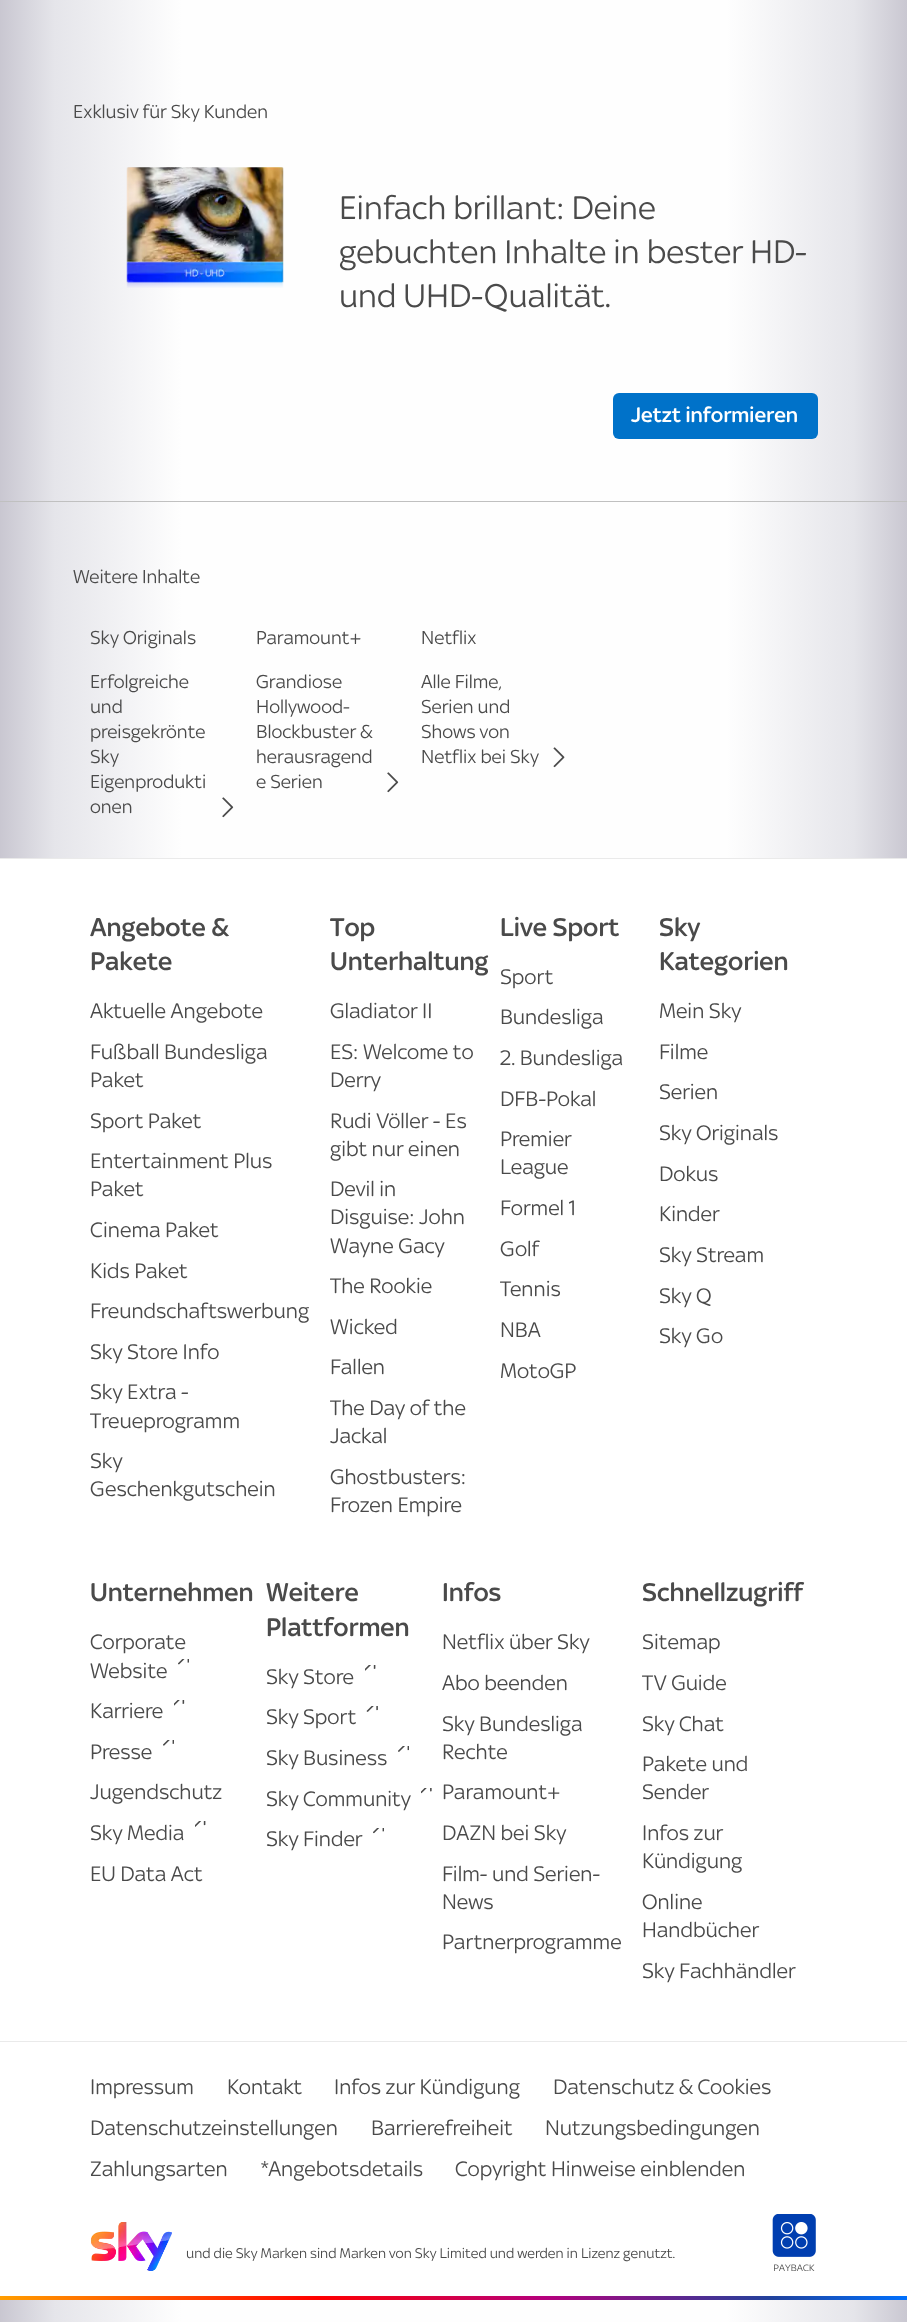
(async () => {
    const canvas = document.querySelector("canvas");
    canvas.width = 907;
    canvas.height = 2322;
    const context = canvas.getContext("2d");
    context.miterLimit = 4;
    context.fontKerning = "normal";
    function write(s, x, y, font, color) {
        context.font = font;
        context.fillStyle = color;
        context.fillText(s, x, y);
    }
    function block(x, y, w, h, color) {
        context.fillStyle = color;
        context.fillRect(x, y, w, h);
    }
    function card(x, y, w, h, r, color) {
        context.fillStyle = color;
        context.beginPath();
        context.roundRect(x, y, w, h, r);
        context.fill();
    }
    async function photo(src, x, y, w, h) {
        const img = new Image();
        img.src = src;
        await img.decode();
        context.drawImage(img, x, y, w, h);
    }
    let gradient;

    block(0, 0, 907, 2322, "rgb(255, 255, 255)");
    gradient = context.createLinearGradient(0, -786, 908, -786);
    gradient.addColorStop(0, "rgb(201, 199, 209)");
    gradient.addColorStop(0.06, "rgb(229, 229, 234)");
    gradient.addColorStop(0.2, "rgb(254, 254, 254)");
    gradient.addColorStop(0.8, "rgb(254, 254, 254)");
    gradient.addColorStop(0.94, "rgb(229, 229, 234)");
    gradient.addColorStop(1, "rgb(201, 199, 209)");
    context.fillStyle = gradient;
    context.fillRect(0, 0, 907, 2322);
    write("Exklusiv für Sky Kunden", 73, 118, "20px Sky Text", "rgb(74, 74, 74)");
    await photo("media/1.png", 126, 167, 158, 121);
    write("Einfach brillant: Deine", 339, 219, "35px Sky Text", "rgb(74, 74, 74)");
    write("gebuchten Inhalte in bester HD-", 339, 263, "35px Sky Text", "rgb(74, 74, 74)");
    write("und UHD-Qualität.", 339, 307, "35px Sky Text", "rgb(74, 74, 74)");
    card(613, 393, 205, 46, 6, "rgb(0, 114, 201)");
    write("Jetzt informieren", 631, 422, "500 22.5px Sky Text", "rgb(255, 255, 255)");
    block(0, 501, 907, 1, "rgb(192, 192, 192)");
    write("Weitere Inhalte", 73, 583, "20px Sky Text", "rgb(74, 74, 74)");
    write("Sky Originals", 90, 644, "20px Sky Text", "rgb(74, 74, 74)");
    write("Erfolgreiche", 90, 688, "20px Sky Text", "rgb(74, 74, 74)");
    write("und", 90, 713, "20px Sky Text", "rgb(74, 74, 74)");
    write("preisgekrönte", 90, 738, "20px Sky Text", "rgb(74, 74, 74)");
    write("Sky", 90, 763, "20px Sky Text", "rgb(74, 74, 74)");
    write("Eigenprodukti", 90, 788, "20px Sky Text", "rgb(74, 74, 74)");
    write("onen", 90, 813, "20px Sky Text", "rgb(74, 74, 74)");
    await photo("media/2.png", 222, 797, 12, 21);
    write("Paramount+", 256, 644, "20px Sky Text", "rgb(74, 74, 74)");
    write("Grandiose", 256, 688, "20px Sky Text", "rgb(74, 74, 74)");
    write("Hollywood-", 256, 713, "20px Sky Text", "rgb(74, 74, 74)");
    write("Blockbuster &", 256, 738, "20px Sky Text", "rgb(74, 74, 74)");
    write("herausragend", 256, 763, "20px Sky Text", "rgb(74, 74, 74)");
    write("e Serien", 256, 788, "20px Sky Text", "rgb(74, 74, 74)");
    await photo("media/2.png", 387, 772, 12, 21);
    write("Netflix", 421, 644, "20px Sky Text", "rgb(74, 74, 74)");
    write("Alle Filme,", 421, 688, "20px Sky Text", "rgb(74, 74, 74)");
    write("Serien und", 421, 713, "20px Sky Text", "rgb(74, 74, 74)");
    write("Shows von", 421, 738, "20px Sky Text", "rgb(74, 74, 74)");
    write("Netflix bei Sky", 421, 763, "20px Sky Text", "rgb(74, 74, 74)");
    await photo("media/3.png", 553, 747, 12, 21);
    block(0, 859, 907, 1437, "rgb(255, 255, 255)");
    block(0, 858, 907, 1, "rgb(234, 234, 234)");
    write("Angebote &", 90, 936, "500 27.5px Sky Text", "rgb(74, 74, 74)");
    write("Pakete", 90, 970, "500 27.5px Sky Text", "rgb(74, 74, 74)");
    write("Aktuelle Angebote", 90, 1018, "22.5px Sky Text", "rgb(74, 74, 74)");
    write("Fußball Bundesliga", 90, 1059, "22.5px Sky Text", "rgb(74, 74, 74)");
    write("Paket", 90, 1087, "22.5px Sky Text", "rgb(74, 74, 74)");
    write("Sport Paket", 90, 1128, "22.5px Sky Text", "rgb(74, 74, 74)");
    write("Entertainment Plus", 90, 1168, "22.5px Sky Text", "rgb(74, 74, 74)");
    write("Paket", 90, 1196, "22.5px Sky Text", "rgb(74, 74, 74)");
    write("Cinema Paket", 90, 1237, "22.5px Sky Text", "rgb(74, 74, 74)");
    write("Kids Paket", 90, 1278, "22.5px Sky Text", "rgb(74, 74, 74)");
    write("Freundschaftswerbung", 90, 1318, "22.5px Sky Text", "rgb(74, 74, 74)");
    write("Sky Store Info", 90, 1359, "22.5px Sky Text", "rgb(74, 74, 74)");
    write("Sky Extra -", 90, 1399, "22.5px Sky Text", "rgb(74, 74, 74)");
    write("Treueprogramm", 90, 1428, "22.5px Sky Text", "rgb(74, 74, 74)");
    write("Sky", 90, 1468, "22.5px Sky Text", "rgb(74, 74, 74)");
    write("Geschenkgutschein", 90, 1496, "22.5px Sky Text", "rgb(74, 74, 74)");
    write("Top", 330, 936, "500 27.5px Sky Text", "rgb(74, 74, 74)");
    write("Unterhaltung", 330, 970, "500 27.5px Sky Text", "rgb(74, 74, 74)");
    write("Gladiator II", 330, 1018, "22.5px Sky Text", "rgb(74, 74, 74)");
    write("ES: Welcome to", 330, 1059, "22.5px Sky Text", "rgb(74, 74, 74)");
    write("Derry", 330, 1087, "22.5px Sky Text", "rgb(74, 74, 74)");
    write("Rudi Völler - Es", 330, 1128, "22.5px Sky Text", "rgb(74, 74, 74)");
    write("gibt nur einen", 330, 1156, "22.5px Sky Text", "rgb(74, 74, 74)");
    write("Devil in", 330, 1196, "22.5px Sky Text", "rgb(74, 74, 74)");
    write("Disguise: John", 330, 1224, "22.5px Sky Text", "rgb(74, 74, 74)");
    write("Wayne Gacy", 330, 1253, "22.5px Sky Text", "rgb(74, 74, 74)");
    write("The Rookie", 330, 1293, "22.5px Sky Text", "rgb(74, 74, 74)");
    write("Wicked", 330, 1334, "22.5px Sky Text", "rgb(74, 74, 74)");
    write("Fallen", 330, 1374, "22.5px Sky Text", "rgb(74, 74, 74)");
    write("The Day of the", 330, 1415, "22.5px Sky Text", "rgb(74, 74, 74)");
    write("Jackal", 330, 1443, "22.5px Sky Text", "rgb(74, 74, 74)");
    write("Ghostbusters:", 330, 1484, "22.5px Sky Text", "rgb(74, 74, 74)");
    write("Frozen Empire", 330, 1512, "22.5px Sky Text", "rgb(74, 74, 74)");
    write("Live Sport", 500, 936, "500 27.5px Sky Text", "rgb(74, 74, 74)");
    write("Sport", 500, 984, "22.5px Sky Text", "rgb(74, 74, 74)");
    write("Bundesliga", 500, 1024, "22.5px Sky Text", "rgb(74, 74, 74)");
    write("2. Bundesliga", 500, 1065, "22.5px Sky Text", "rgb(74, 74, 74)");
    write("DFB-Pokal", 500, 1106, "22.5px Sky Text", "rgb(74, 74, 74)");
    write("Premier", 500, 1146, "22.5px Sky Text", "rgb(74, 74, 74)");
    write("League", 500, 1174, "22.5px Sky Text", "rgb(74, 74, 74)");
    write("Formel 1", 500, 1215, "22.5px Sky Text", "rgb(74, 74, 74)");
    write("Golf", 500, 1256, "22.5px Sky Text", "rgb(74, 74, 74)");
    write("Tennis", 500, 1296, "22.5px Sky Text", "rgb(74, 74, 74)");
    write("NBA", 500, 1337, "22.5px Sky Text", "rgb(74, 74, 74)");
    write("MotoGP", 500, 1378, "22.5px Sky Text", "rgb(74, 74, 74)");
    write("Sky", 659, 936, "500 27.5px Sky Text", "rgb(74, 74, 74)");
    write("Kategorien", 659, 970, "500 27.5px Sky Text", "rgb(74, 74, 74)");
    write("Mein Sky", 659, 1018, "22.5px Sky Text", "rgb(74, 74, 74)");
    write("Filme", 659, 1059, "22.5px Sky Text", "rgb(74, 74, 74)");
    write("Serien", 659, 1099, "22.5px Sky Text", "rgb(74, 74, 74)");
    write("Sky Originals", 659, 1140, "22.5px Sky Text", "rgb(74, 74, 74)");
    write("Dokus", 659, 1181, "22.5px Sky Text", "rgb(74, 74, 74)");
    write("Kinder", 659, 1221, "22.5px Sky Text", "rgb(74, 74, 74)");
    write("Sky Stream", 659, 1262, "22.5px Sky Text", "rgb(74, 74, 74)");
    write("Sky Q", 659, 1303, "22.5px Sky Text", "rgb(74, 74, 74)");
    write("Sky Go", 659, 1343, "22.5px Sky Text", "rgb(74, 74, 74)");
    write("Unternehmen", 90, 1601, "500 27.5px Sky Text", "rgb(74, 74, 74)");
    write("Corporate", 90, 1649, "22.5px Sky Text", "rgb(74, 74, 74)");
    write("Website", 90, 1678, "22.5px Sky Text", "rgb(74, 74, 74)");
    await photo("media/4.png", 178, 1659, 11, 6);
    write("Karriere", 90, 1718, "22.5px Sky Text", "rgb(74, 74, 74)");
    await photo("media/5.png", 174, 1700, 11, 6);
    await photo("media/6.png", 163, 1740, 11, 6);
    write("Presse", 90, 1759, "22.5px Sky Text", "rgb(74, 74, 74)");
    write("Jugendschutz", 90, 1799, "22.5px Sky Text", "rgb(74, 74, 74)");
    write("Sky Media", 90, 1840, "22.5px Sky Text", "rgb(74, 74, 74)");
    await photo("media/7.png", 195, 1821, 11, 6);
    write("EU Data Act", 90, 1881, "22.5px Sky Text", "rgb(74, 74, 74)");
    write("Weitere", 266, 1601, "500 27.5px Sky Text", "rgb(74, 74, 74)");
    write("Plattformen", 266, 1636, "500 27.5px Sky Text", "rgb(74, 74, 74)");
    write("Sky Store", 266, 1684, "22.5px Sky Text", "rgb(74, 74, 74)");
    await photo("media/8.png", 365, 1665, 11, 6);
    write("Sky Sport", 266, 1724, "22.5px Sky Text", "rgb(74, 74, 74)");
    await photo("media/9.png", 366, 1706, 12, 6);
    write("Sky Business", 266, 1765, "22.5px Sky Text", "rgb(74, 74, 74)");
    await photo("media/10.png", 398, 1746, 11, 6);
    write("Sky Community", 266, 1806, "22.5px Sky Text", "rgb(74, 74, 74)");
    await photo("media/11.png", 421, 1788, 11, 6);
    write("Sky Finder", 266, 1846, "22.5px Sky Text", "rgb(74, 74, 74)");
    await photo("media/12.png", 373, 1828, 11, 6);
    write("Infos", 442, 1601, "500 27.5px Sky Text", "rgb(74, 74, 74)");
    write("Netflix über Sky", 442, 1649, "22.5px Sky Text", "rgb(74, 74, 74)");
    write("Abo beenden", 442, 1690, "22.5px Sky Text", "rgb(74, 74, 74)");
    write("Sky Bundesliga", 442, 1731, "22.5px Sky Text", "rgb(74, 74, 74)");
    write("Rechte", 442, 1759, "22.5px Sky Text", "rgb(74, 74, 74)");
    write("Paramount+", 442, 1799, "22.5px Sky Text", "rgb(74, 74, 74)");
    write("DAZN bei Sky", 442, 1840, "22.5px Sky Text", "rgb(74, 74, 74)");
    write("Film- und Serien-", 442, 1881, "22.5px Sky Text", "rgb(74, 74, 74)");
    write("News", 442, 1909, "22.5px Sky Text", "rgb(74, 74, 74)");
    write("Partnerprogramme", 442, 1949, "22.5px Sky Text", "rgb(74, 74, 74)");
    write("Schnellzugriff", 642, 1601, "500 27.5px Sky Text", "rgb(74, 74, 74)");
    write("Sitemap", 642, 1649, "22.5px Sky Text", "rgb(74, 74, 74)");
    write("TV Guide", 642, 1690, "22.5px Sky Text", "rgb(74, 74, 74)");
    write("Sky Chat", 642, 1731, "22.5px Sky Text", "rgb(74, 74, 74)");
    write("Pakete und", 642, 1771, "22.5px Sky Text", "rgb(74, 74, 74)");
    write("Sender", 642, 1799, "22.5px Sky Text", "rgb(74, 74, 74)");
    write("Infos zur", 642, 1840, "22.5px Sky Text", "rgb(74, 74, 74)");
    write("Kündigung", 642, 1868, "22.5px Sky Text", "rgb(74, 74, 74)");
    write("Online", 642, 1909, "22.5px Sky Text", "rgb(74, 74, 74)");
    write("Handbücher", 642, 1937, "22.5px Sky Text", "rgb(74, 74, 74)");
    write("Sky Fachhändler", 642, 1978, "22.5px Sky Text", "rgb(74, 74, 74)");
    block(0, 2041, 907, 1, "rgb(234, 234, 234)");
    write("Impressum", 90, 2094, "22.5px Sky Text", "rgb(74, 74, 74)");
    write("Kontakt", 227, 2094, "22.5px Sky Text", "rgb(74, 74, 74)");
    write("Infos zur Kündigung", 334, 2094, "22.5px Sky Text", "rgb(74, 74, 74)");
    write("Datenschutz & Cookies", 553, 2094, "22.5px Sky Text", "rgb(74, 74, 74)");
    write("Datenschutzeinstellungen", 90, 2135, "22.5px Sky Text", "rgb(74, 74, 74)");
    write("Barrierefreiheit", 371, 2135, "22.5px Sky Text", "rgb(74, 74, 74)");
    write("Nutzungsbedingungen", 545, 2135, "22.5px Sky Text", "rgb(74, 74, 74)");
    write("Zahlungsarten", 90, 2176, "22.5px Sky Text", "rgb(74, 74, 74)");
    write("*Angebotsdetails", 261, 2176, "22.5px Sky Text", "rgb(74, 74, 74)");
    write("Copyright Hinweise einblenden", 455, 2176, "22.5px Sky Text", "rgb(74, 74, 74)");
    await photo("media/13.png", 90, 2222, 82, 49);
    write("und die Sky Marken sind Marken von Sky Limited und werden in Lizenz genutzt.", 186, 2258, "15px Sky Text", "rgb(74, 74, 74)");
    await photo("media/14.png", 772, 2214, 44, 57);
    gradient = context.createLinearGradient(0, 2298, 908, 2298);
    gradient.addColorStop(0, "rgb(255, 158, 0)");
    gradient.addColorStop(0.35, "rgb(255, 0, 0)");
    gradient.addColorStop(0.6, "rgb(181, 0, 125)");
    gradient.addColorStop(0.85, "rgb(33, 66, 156)");
    gradient.addColorStop(1, "rgb(0, 113, 255)");
    context.fillStyle = gradient;
    context.fillRect(0, 2296, 907, 4);
})();
